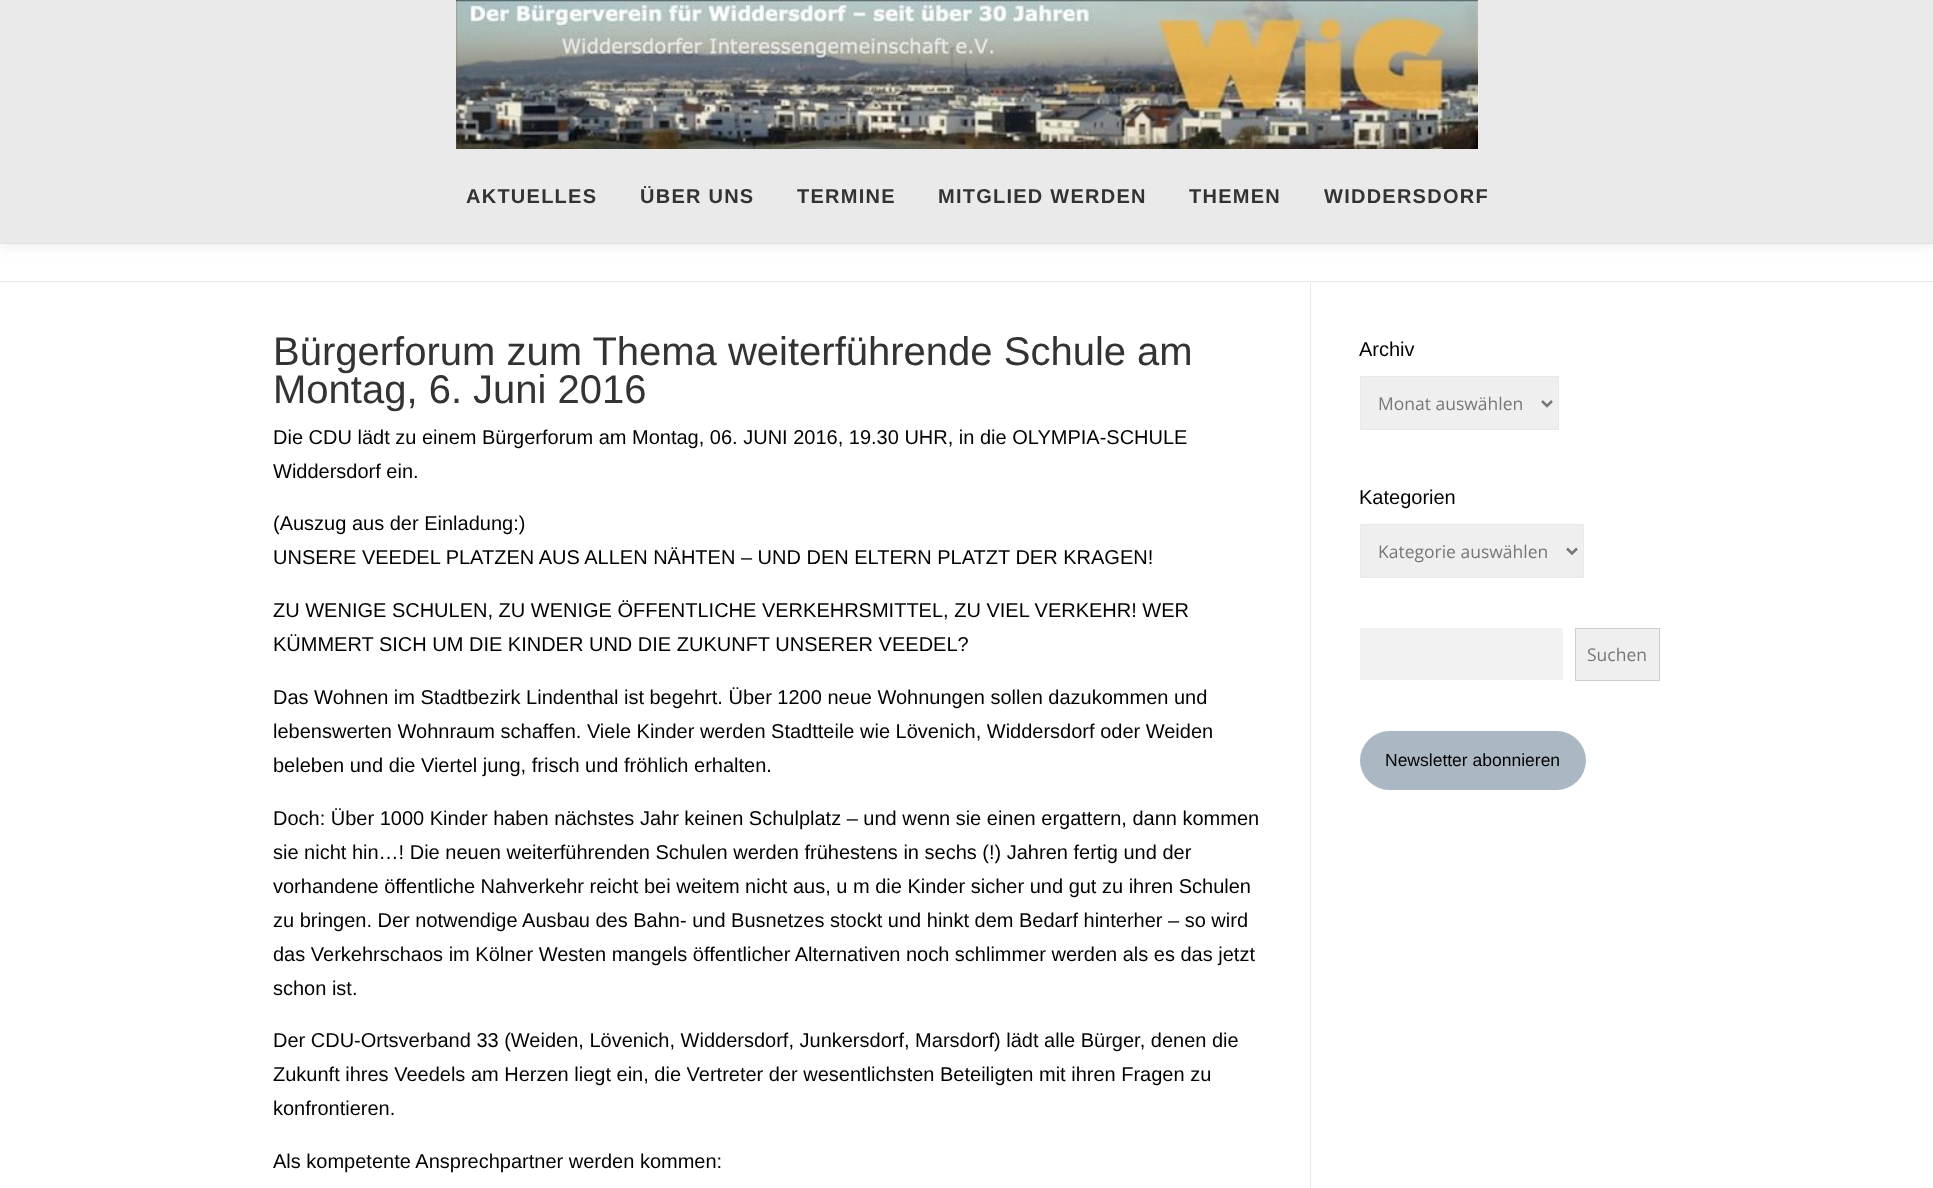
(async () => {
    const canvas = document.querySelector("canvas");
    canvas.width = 1933;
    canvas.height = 1188;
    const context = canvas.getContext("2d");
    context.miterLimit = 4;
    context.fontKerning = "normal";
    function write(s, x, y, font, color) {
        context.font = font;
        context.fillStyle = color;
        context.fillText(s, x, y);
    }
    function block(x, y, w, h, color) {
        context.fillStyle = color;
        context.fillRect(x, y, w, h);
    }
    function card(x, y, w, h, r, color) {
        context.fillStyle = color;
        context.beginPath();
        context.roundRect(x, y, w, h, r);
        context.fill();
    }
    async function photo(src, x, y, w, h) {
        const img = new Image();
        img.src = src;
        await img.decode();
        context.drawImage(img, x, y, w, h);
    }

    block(0, 0, 1933, 1188, "rgb(255, 255, 255)");
    block(0, 243, 1933, 1, "rgb(233, 233, 233)");
    context.fillStyle = "rgba(50, 50, 50, 0.06)";
    context.filter = "blur(6px)";
    context.beginPath();
    context.rect(0, 6, 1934, 243);
    context.fill();
    context.filter = "none";
    block(0, 0, 1933, 243, "rgb(234, 234, 234)");
    await photo("media/1.png", 456, 0, 1022, 149);
    context.letterSpacing = "1.25px";
    write("AKTUELLES", 466, 203, "bold 20px Liberation Sans", "rgb(51, 51, 51)");
    write("ÜBER UNS", 640, 203, "bold 20px Liberation Sans", "rgb(51, 51, 51)");
    write("TERMINE", 797, 203, "bold 20px Liberation Sans", "rgb(51, 51, 51)");
    write("MITGLIED WERDEN", 938, 203, "bold 20px Liberation Sans", "rgb(51, 51, 51)");
    write("THEMEN", 1189, 203, "bold 20px Liberation Sans", "rgb(51, 51, 51)");
    write("WIDDERSDORF", 1324, 203, "bold 20px Liberation Sans", "rgb(51, 51, 51)");
    block(0, 281, 1933, 1, "rgb(233, 233, 233)");
    block(1310, 283, 1, 905, "rgb(233, 233, 233)");
    context.letterSpacing = "0px";
    write("Bürgerforum zum Thema weiterführende Schule am", 273, 365, "40px Liberation Sans", "rgb(51, 51, 51)");
    write("Montag, 6. Juni 2016", 273, 403, "40px Liberation Sans", "rgb(51, 51, 51)");
    write("Die CDU lädt zu einem Bürgerforum am Montag, 06. JUNI 2016, 19.30 UHR, in die OLYMPIA-SCHULE", 273, 444, "20px Liberation Sans", "rgb(0, 0, 0)");
    write("Widdersdorf ein.", 273, 478, "20px Liberation Sans", "rgb(0, 0, 0)");
    write("(Auszug aus der Einladung:)", 273, 530, "20px Liberation Sans", "rgb(0, 0, 0)");
    write("UNSERE VEEDEL PLATZEN AUS ALLEN NÄHTEN – UND DEN ELTERN PLATZT DER KRAGEN!", 273, 564, "20px Liberation Sans", "rgb(0, 0, 0)");
    write("ZU WENIGE SCHULEN, ZU WENIGE ÖFFENTLICHE VERKEHRSMITTEL, ZU VIEL VERKEHR! WER", 273, 617, "20px Liberation Sans", "rgb(0, 0, 0)");
    write("KÜMMERT SICH UM DIE KINDER UND DIE ZUKUNFT UNSERER VEEDEL?", 273, 651, "20px Liberation Sans", "rgb(0, 0, 0)");
    write("Das Wohnen im Stadtbezirk Lindenthal ist begehrt. Über 1200 neue Wohnungen sollen dazukommen und", 273, 704, "20px Liberation Sans", "rgb(0, 0, 0)");
    write("lebenswerten Wohnraum schaffen. Viele Kinder werden Stadtteile wie Lövenich, Widdersdorf oder Weiden", 273, 738, "20px Liberation Sans", "rgb(0, 0, 0)");
    write("beleben und die Viertel jung, frisch und fröhlich erhalten.", 273, 772, "20px Liberation Sans", "rgb(0, 0, 0)");
    write("Doch: Über 1000 Kinder haben nächstes Jahr keinen Schulplatz – und wenn sie einen ergattern, dann kommen", 273, 825, "20px Liberation Sans", "rgb(0, 0, 0)");
    write("sie nicht hin…! Die neuen weiterführenden Schulen werden frühestens in sechs (!) Jahren fertig und der", 273, 859, "20px Liberation Sans", "rgb(0, 0, 0)");
    write("vorhandene öffentliche Nahverkehr reicht bei weitem nicht aus, u m die Kinder sicher und gut zu ihren Schulen", 273, 893, "20px Liberation Sans", "rgb(0, 0, 0)");
    write("zu bringen. Der notwendige Ausbau des Bahn- und Busnetzes stockt und hinkt dem Bedarf hinterher – so wird", 273, 927, "20px Liberation Sans", "rgb(0, 0, 0)");
    write("das Verkehrschaos im Kölner Westen mangels öffentlicher Alternativen noch schlimmer werden als es das jetzt", 273, 961, "20px Liberation Sans", "rgb(0, 0, 0)");
    write("schon ist.", 273, 995, "20px Liberation Sans", "rgb(0, 0, 0)");
    write("Der CDU-Ortsverband 33 (Weiden, Lövenich, Widdersdorf, Junkersdorf, Marsdorf) lädt alle Bürger, denen die", 273, 1047, "20px Liberation Sans", "rgb(0, 0, 0)");
    write("Zukunft ihres Veedels am Herzen liegt ein, die Vertreter der wesentlichsten Beteiligten mit ihren Fragen zu", 273, 1081, "20px Liberation Sans", "rgb(0, 0, 0)");
    write("konfrontieren.", 273, 1115, "20px Liberation Sans", "rgb(0, 0, 0)");
    write("Als kompetente Ansprechpartner werden kommen:", 273, 1168, "20px Liberation Sans", "rgb(0, 0, 0)");
    write("Archiv", 1359, 356, "20px Liberation Sans", "rgb(0, 0, 0)");
    context.fillStyle = "rgb(239, 239, 239)";
    context.beginPath();
    context.rect(1360.5, 376.5, 198, 53);
    context.fill();
    context.strokeStyle = "rgb(233, 233, 233)";
    context.stroke();
    context.beginPath();
    context.moveTo(1542, 401);
    context.lineTo(1547, 406);
    context.lineTo(1552, 401);
    context.strokeStyle = "rgb(119, 119, 119)";
    context.lineWidth = 2.5;
    context.stroke();
    write("Monat auswählen", 1378, 410, "17.5px Open Sans", "rgb(119, 119, 119)");
    write("Kategorien", 1359, 504, "20px Liberation Sans", "rgb(0, 0, 0)");
    context.fillStyle = "rgb(239, 239, 239)";
    context.beginPath();
    context.rect(1360.5, 524.5, 223, 53);
    context.fill();
    context.strokeStyle = "rgb(233, 233, 233)";
    context.lineWidth = 1;
    context.stroke();
    context.beginPath();
    context.moveTo(1567, 548.5);
    context.lineTo(1572, 553.5);
    context.lineTo(1577, 548.5);
    context.strokeStyle = "rgb(119, 119, 119)";
    context.lineWidth = 2.5;
    context.stroke();
    write("Kategorie auswählen", 1378, 558, "17.5px Open Sans", "rgb(119, 119, 119)");
    block(1360, 628, 203, 52, "rgb(242, 242, 242)");
    context.fillStyle = "rgb(239, 239, 239)";
    context.beginPath();
    context.rect(1575.5, 628.5, 84, 52);
    context.fill();
    context.strokeStyle = "rgb(204, 204, 204)";
    context.lineWidth = 1;
    context.stroke();
    write("Suchen", 1587, 661, "17.5px Open Sans", "rgb(119, 119, 119)");
    card(1360, 731, 226, 59, 29.5, "rgb(171, 184, 195)");
    write("Newsletter abonnieren", 1385, 766, "17.5px Liberation Sans", "rgb(0, 0, 0)");
})();
